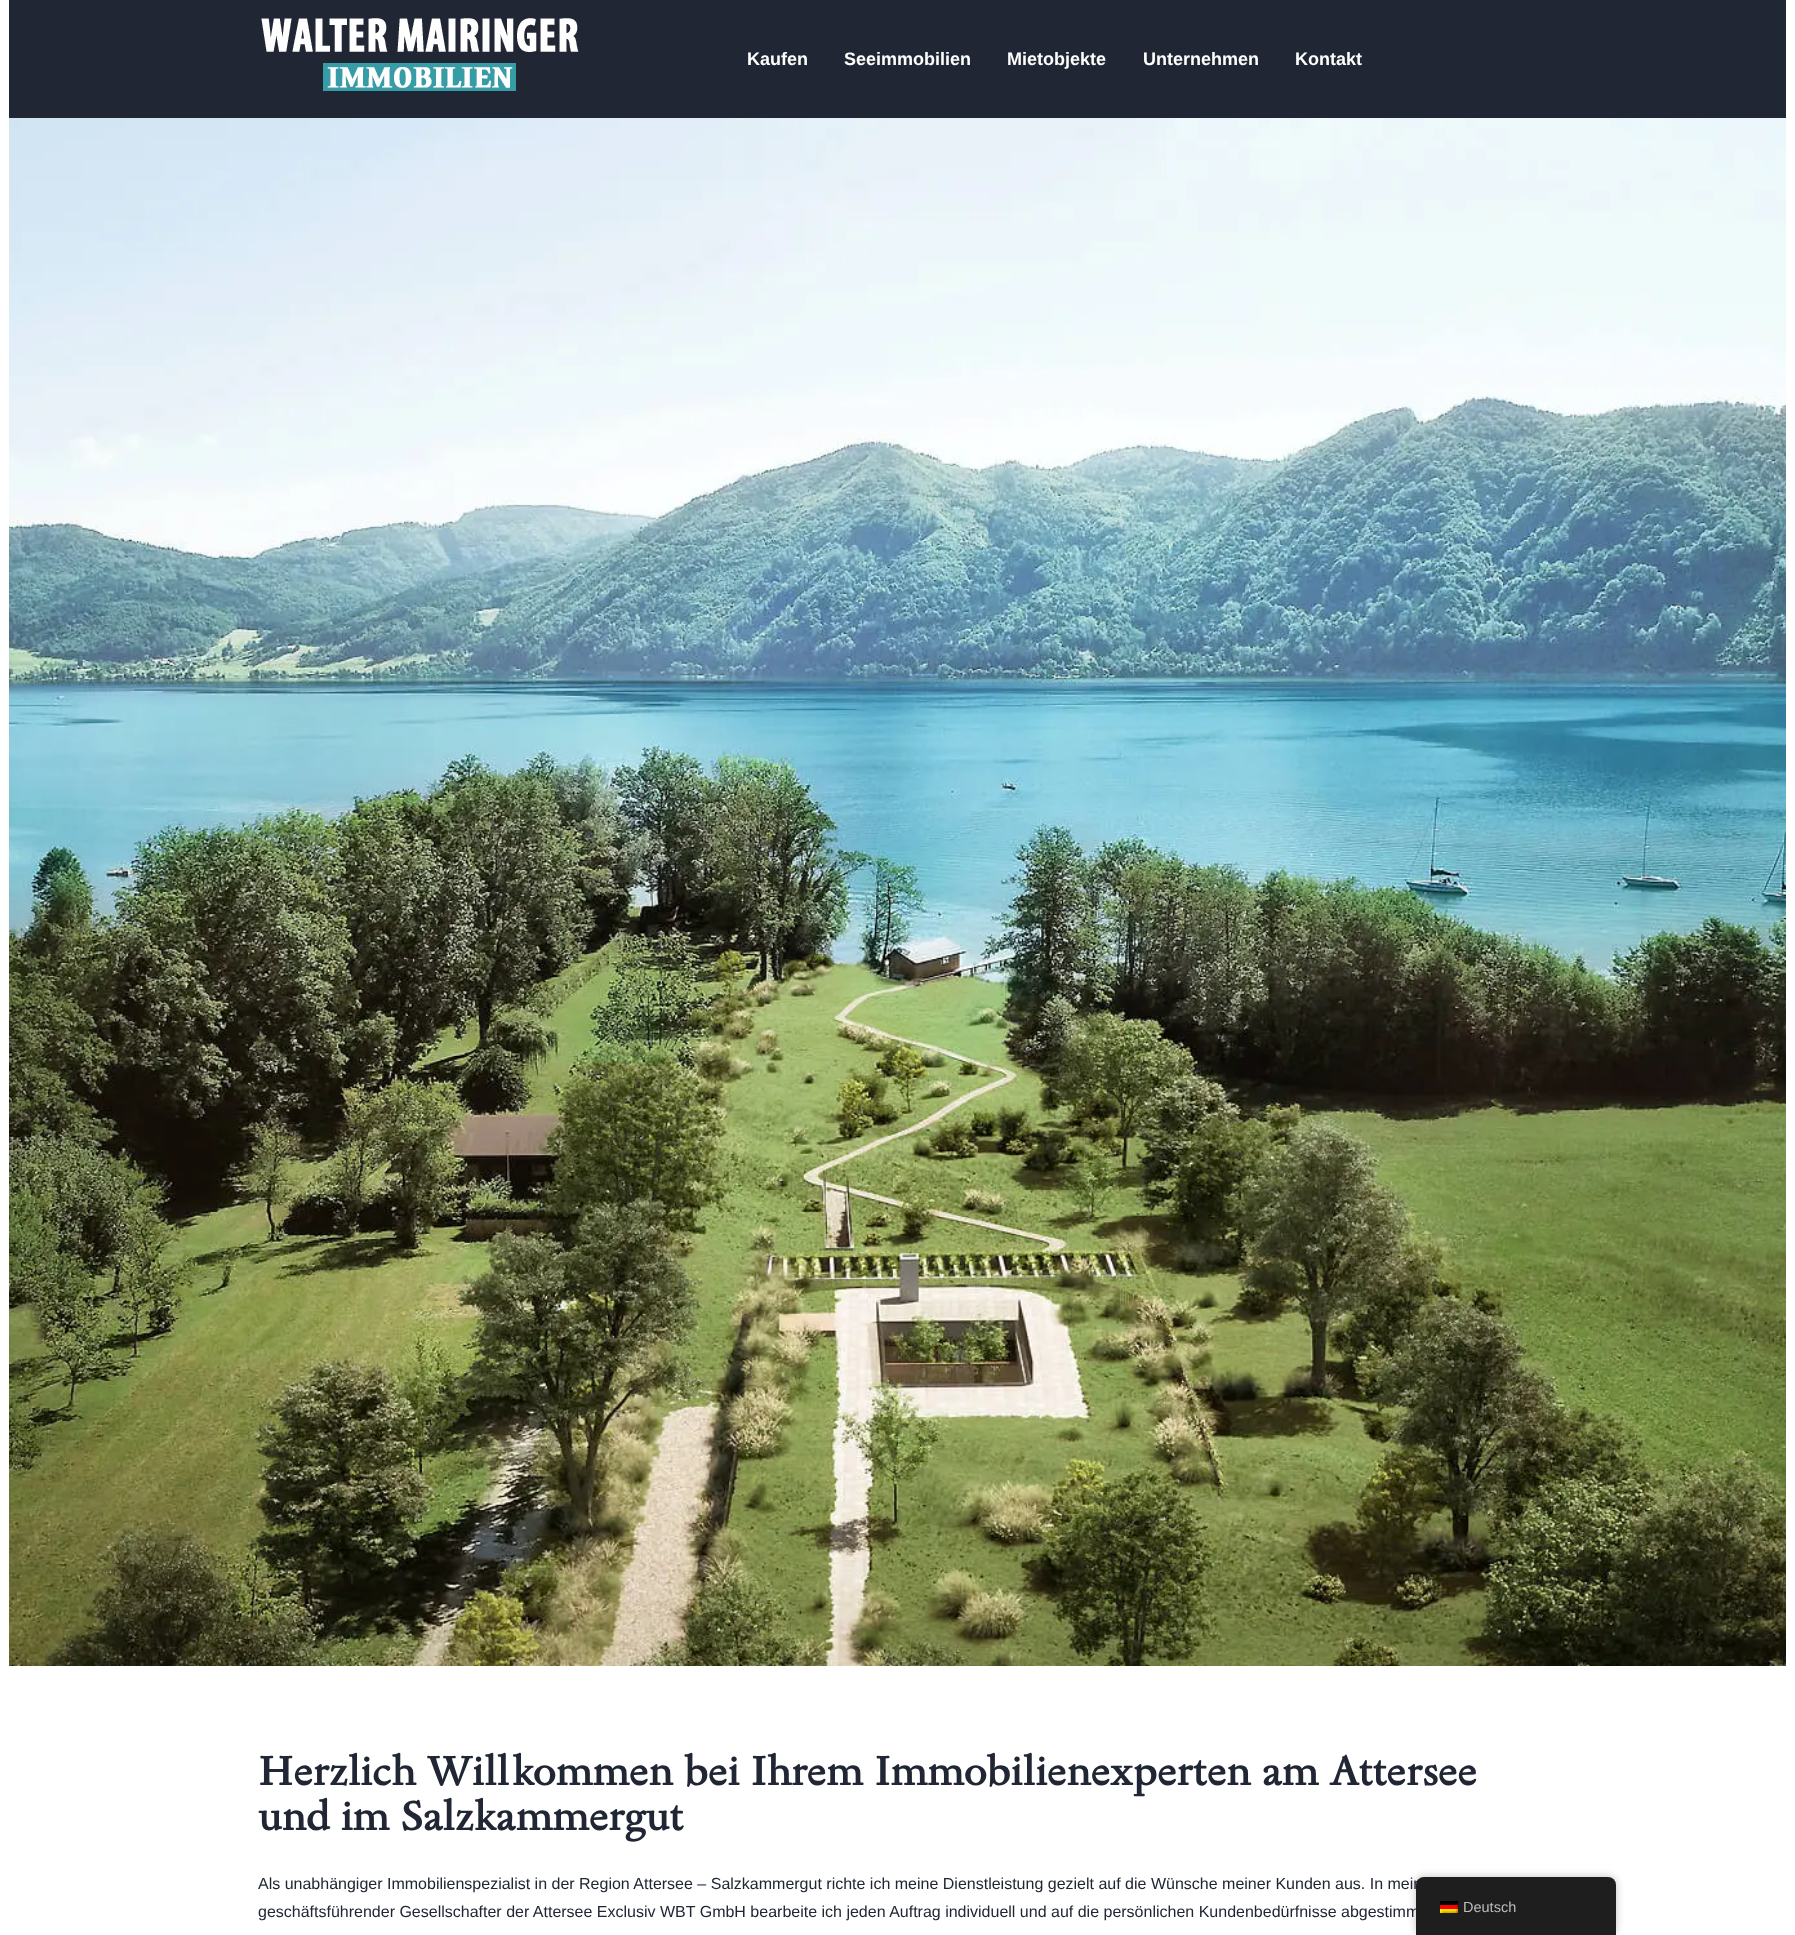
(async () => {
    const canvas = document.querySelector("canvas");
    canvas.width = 1795;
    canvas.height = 1935;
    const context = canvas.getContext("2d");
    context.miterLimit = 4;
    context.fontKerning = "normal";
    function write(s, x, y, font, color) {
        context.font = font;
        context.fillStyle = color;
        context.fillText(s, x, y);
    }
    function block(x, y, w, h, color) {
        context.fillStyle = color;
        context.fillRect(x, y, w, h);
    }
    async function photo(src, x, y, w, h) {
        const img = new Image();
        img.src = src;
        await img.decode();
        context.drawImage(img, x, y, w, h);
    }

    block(0, 0, 1795, 1935, "rgb(255, 255, 255)");
    block(9, 0, 1777, 118, "rgb(32, 38, 51)");
    await photo("media/1.png", 261, 18, 318, 73);
    write("Kaufen", 747, 65, "bold 18px Liberation Sans", "rgb(255, 255, 255)");
    write("Seeimmobilien", 844, 65, "bold 18px Liberation Sans", "rgb(255, 255, 255)");
    write("Mietobjekte", 1007, 65, "bold 18px Liberation Sans", "rgb(255, 255, 255)");
    write("Unternehmen", 1143, 65, "bold 18px Liberation Sans", "rgb(255, 255, 255)");
    write("Kontakt", 1295, 65, "bold 18px Liberation Sans", "rgb(255, 255, 255)");
    await photo("media/2.png", 9, 118, 1777, 1548);
    write("Herzlich Willkommen bei Ihrem Immobilienexperten am Attersee", 258, 1785, "bold 41.6px Sedan", "rgb(32, 38, 51)");
    write("und im Salzkammergut", 258, 1830, "bold 41.6px Sedan", "rgb(32, 38, 51)");
    write("Als unabhängiger Immobilienspezialist in der Region Attersee – Salzkammergut richte ich meine Dienstleistung gezielt auf die Wünsche meiner Kunden aus. In mein", 258, 1889, "16px Liberation Sans", "rgb(32, 38, 51)");
    write("geschäftsführender Gesellschafter der Attersee Exclusiv WBT GmbH bearbeite ich jeden Auftrag individuell und auf die persönlichen Kundenbedürfnisse abgestimm", 258, 1917, "16px Liberation Sans", "rgb(32, 38, 51)");
    context.fillStyle = "rgba(0, 0, 0, 0.25)";
    context.filter = "blur(4px)";
    context.beginPath();
    context.roundRect(1416, 1877, 200, 58, 8);
    context.fill();
    context.filter = "none";
    context.fillStyle = "rgb(30, 30, 30)";
    context.beginPath();
    context.roundRect(1416, 1877, 200, 58, [8, 8, 0, 0]);
    context.fill();
    await photo("media/3.png", 1440, 1901, 18, 12);
    write("Deutsch", 1463, 1912, "14.5px Liberation Sans", "rgb(189, 189, 189)");
})();
